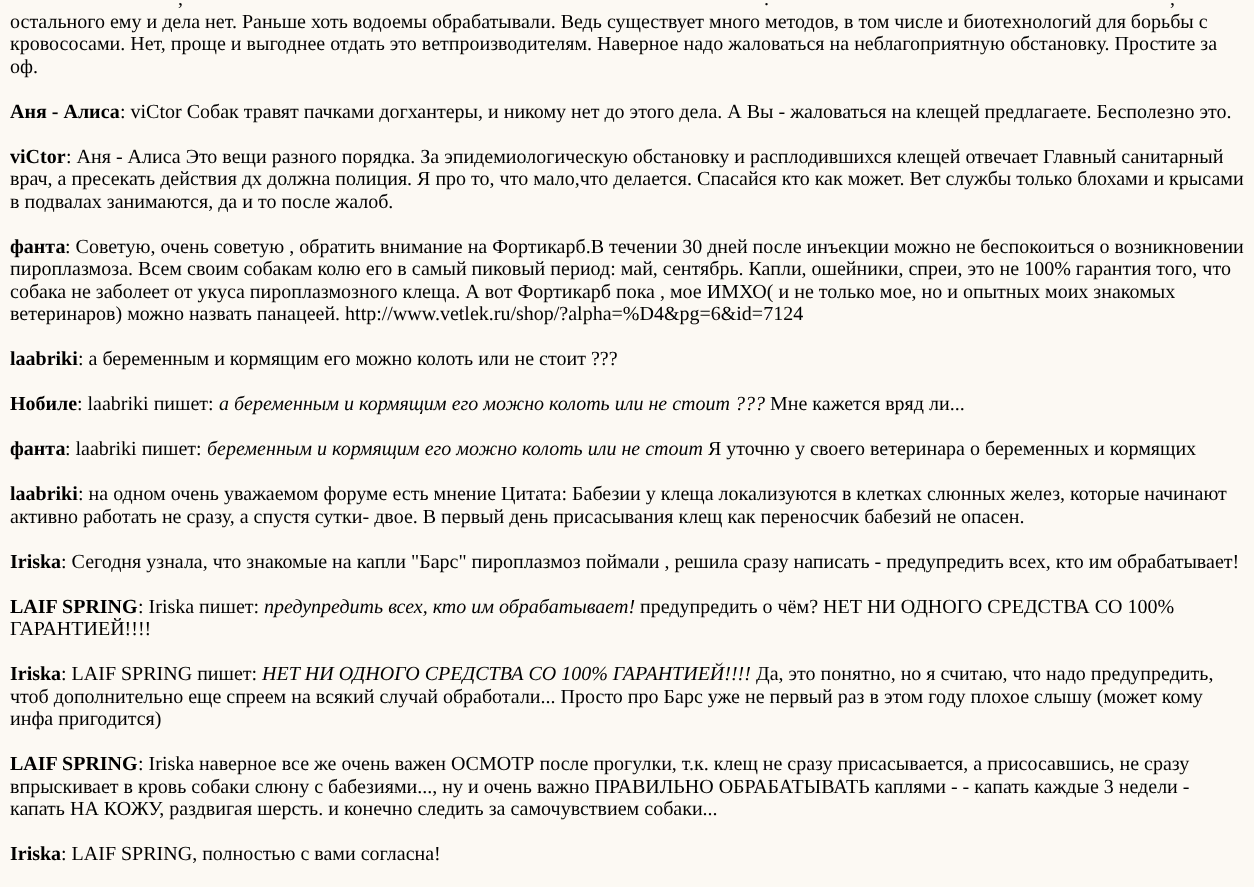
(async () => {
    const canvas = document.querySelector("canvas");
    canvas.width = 1254;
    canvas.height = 887;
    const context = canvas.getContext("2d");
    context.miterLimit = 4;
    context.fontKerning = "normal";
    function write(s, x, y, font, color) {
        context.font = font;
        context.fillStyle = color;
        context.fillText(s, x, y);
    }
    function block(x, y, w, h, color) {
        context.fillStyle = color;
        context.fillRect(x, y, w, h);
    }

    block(0, 0, 1254, 887, "rgb(252, 249, 243)");
    write(",", 178, 5, "20px Liberation Serif", "rgb(0, 0, 0)");
    write(".", 764, 5, "20px Liberation Serif", "rgb(0, 0, 0)");
    write(",", 1170, 5, "20px Liberation Serif", "rgb(0, 0, 0)");
    write("остального ему и дела нет. Раньше хоть водоемы обрабатывали. Ведь существует много методов, в том числе и биотехнологий для борьбы с", 10, 28, "20px Liberation Serif", "rgb(0, 0, 0)");
    write("кровососами. Нет, проще и выгоднее отдать это ветпроизводителям. Наверное надо жаловаться на неблагоприятную обстановку. Простите за", 10, 50, "20px Liberation Serif", "rgb(0, 0, 0)");
    write("оф.", 10, 73, "20px Liberation Serif", "rgb(0, 0, 0)");
    write("Аня - Алиса", 10, 118, "bold 20px Liberation Serif", "rgb(0, 0, 0)");
    write(": viCtor Собак травят пачками догхантеры, и никому нет до этого дела. А Вы - жаловаться на клещей предлагаете. Бесполезно это.", 120, 118, "20px Liberation Serif", "rgb(0, 0, 0)");
    write("viCtor", 10, 163, "bold 20px Liberation Serif", "rgb(0, 0, 0)");
    write(": Аня - Алиса Это вещи разного порядка. За эпидемиологическую обстановку и расплодившихся клещей отвечает Главный санитарный", 66, 163, "20px Liberation Serif", "rgb(0, 0, 0)");
    write("врач, а пресекать действия дх должна полиция. Я про то, что мало,что делается. Спасайся кто как может. Вет службы только блохами и крысами", 10, 185, "20px Liberation Serif", "rgb(0, 0, 0)");
    write("в подвалах занимаются, да и то после жалоб.", 10, 208, "20px Liberation Serif", "rgb(0, 0, 0)");
    write("фанта", 10, 253, "bold 20px Liberation Serif", "rgb(0, 0, 0)");
    write(": Советую, очень советую , обратить внимание на Фортикарб.В течении 30 дней после инъекции можно не беспокоиться о возникновении", 65, 253, "20px Liberation Serif", "rgb(0, 0, 0)");
    write("пироплазмоза. Всем своим собакам колю его в самый пиковый период: май, сентябрь. Капли, ошейники, спреи, это не 100% гарантия того, что", 10, 275, "20px Liberation Serif", "rgb(0, 0, 0)");
    write("собака не заболеет от укуса пироплазмозного клеща. А вот Фортикарб пока , мое ИМХО( и не только мое, но и опытных моих знакомых", 10, 298, "20px Liberation Serif", "rgb(0, 0, 0)");
    write("ветеринаров) можно назвать панацеей. http://www.vetlek.ru/shop/?alpha=%D4&pg=6&id=7124", 10, 320, "20px Liberation Serif", "rgb(0, 0, 0)");
    write("laabriki", 10, 365, "bold 20px Liberation Serif", "rgb(0, 0, 0)");
    write(": а беременным и кормящим его можно колоть или не стоит ???", 78, 365, "20px Liberation Serif", "rgb(0, 0, 0)");
    write("Нобиле", 10, 410, "bold 20px Liberation Serif", "rgb(0, 0, 0)");
    write(": laabriki пишет:", 77, 410, "20px Liberation Serif", "rgb(0, 0, 0)");
    write("а беременным и кормящим его можно колоть или не стоит ???", 219, 410, "italic 20px Liberation Serif", "rgb(0, 0, 0)");
    write("Мне кажется вряд ли...", 770, 410, "20px Liberation Serif", "rgb(0, 0, 0)");
    write("фанта", 10, 455, "bold 20px Liberation Serif", "rgb(0, 0, 0)");
    write(": laabriki пишет:", 65, 455, "20px Liberation Serif", "rgb(0, 0, 0)");
    write("беременным и кормящим его можно колоть или не стоит", 207, 455, "italic 20px Liberation Serif", "rgb(0, 0, 0)");
    write("Я уточню у своего ветеринара о беременных и кормящих", 708, 455, "20px Liberation Serif", "rgb(0, 0, 0)");
    write("laabriki", 10, 500, "bold 20px Liberation Serif", "rgb(0, 0, 0)");
    write(": на одном очень уважаемом форуме есть мнение Цитата: Бабезии у клеща локализуются в клетках слюнных желез, которые начинают", 78, 500, "20px Liberation Serif", "rgb(0, 0, 0)");
    write("активно работать не сразу, а спустя сутки- двое. В первый день присасывания клещ как переносчик бабезий не опасен.", 10, 523, "20px Liberation Serif", "rgb(0, 0, 0)");
    write("Iriska", 10, 568, "bold 20px Liberation Serif", "rgb(0, 0, 0)");
    write(": Сегодня узнала, что знакомые на капли \"Барс\" пироплазмоз поймали , решила сразу написать - предупредить всех, кто им обрабатывает!", 61, 568, "20px Liberation Serif", "rgb(0, 0, 0)");
    write("LAIF SPRING", 10, 613, "bold 20px Liberation Serif", "rgb(0, 0, 0)");
    write(": Iriska пишет:", 138, 613, "20px Liberation Serif", "rgb(0, 0, 0)");
    write("предупредить всех, кто им обрабатывает!", 264, 613, "italic 20px Liberation Serif", "rgb(0, 0, 0)");
    write("предупредить о чём? НЕТ НИ ОДНОГО СРЕДСТВА СО 100%", 640, 613, "20px Liberation Serif", "rgb(0, 0, 0)");
    write("ГАРАНТИЕЙ!!!!", 10, 635, "20px Liberation Serif", "rgb(0, 0, 0)");
    write("Iriska", 10, 680, "bold 20px Liberation Serif", "rgb(0, 0, 0)");
    write(": LAIF SPRING пишет:", 61, 680, "20px Liberation Serif", "rgb(0, 0, 0)");
    write("НЕТ НИ ОДНОГО СРЕДСТВА СО 100% ГАРАНТИЕЙ!!!!", 262, 680, "italic 20px Liberation Serif", "rgb(0, 0, 0)");
    write("Да, это понятно, но я считаю, что надо предупредить,", 756, 680, "20px Liberation Serif", "rgb(0, 0, 0)");
    write("чтоб дополнительно еще спреем на всякий случай обработали... Просто про Барс уже не первый раз в этом году плохое слышу (может кому", 10, 703, "20px Liberation Serif", "rgb(0, 0, 0)");
    write("инфа пригодится)", 10, 725, "20px Liberation Serif", "rgb(0, 0, 0)");
    write("LAIF SPRING", 10, 770, "bold 20px Liberation Serif", "rgb(0, 0, 0)");
    write(": Iriska наверное все же очень важен ОСМОТР после прогулки, т.к. клещ не сразу присасывается, а присосавшись, не сразу", 138, 770, "20px Liberation Serif", "rgb(0, 0, 0)");
    write("впрыскивает в кровь собаки слюну с бабезиями..., ну и очень важно ПРАВИЛЬНО ОБРАБАТЫВАТЬ каплями - - капать каждые 3 недели -", 10, 793, "20px Liberation Serif", "rgb(0, 0, 0)");
    write("капать НА КОЖУ, раздвигая шерсть. и конечно следить за самочувствием собаки...", 10, 815, "20px Liberation Serif", "rgb(0, 0, 0)");
    write("Iriska", 10, 860, "bold 20px Liberation Serif", "rgb(0, 0, 0)");
    write(": LAIF SPRING, полностью с вами согласна!", 61, 860, "20px Liberation Serif", "rgb(0, 0, 0)");
})();
